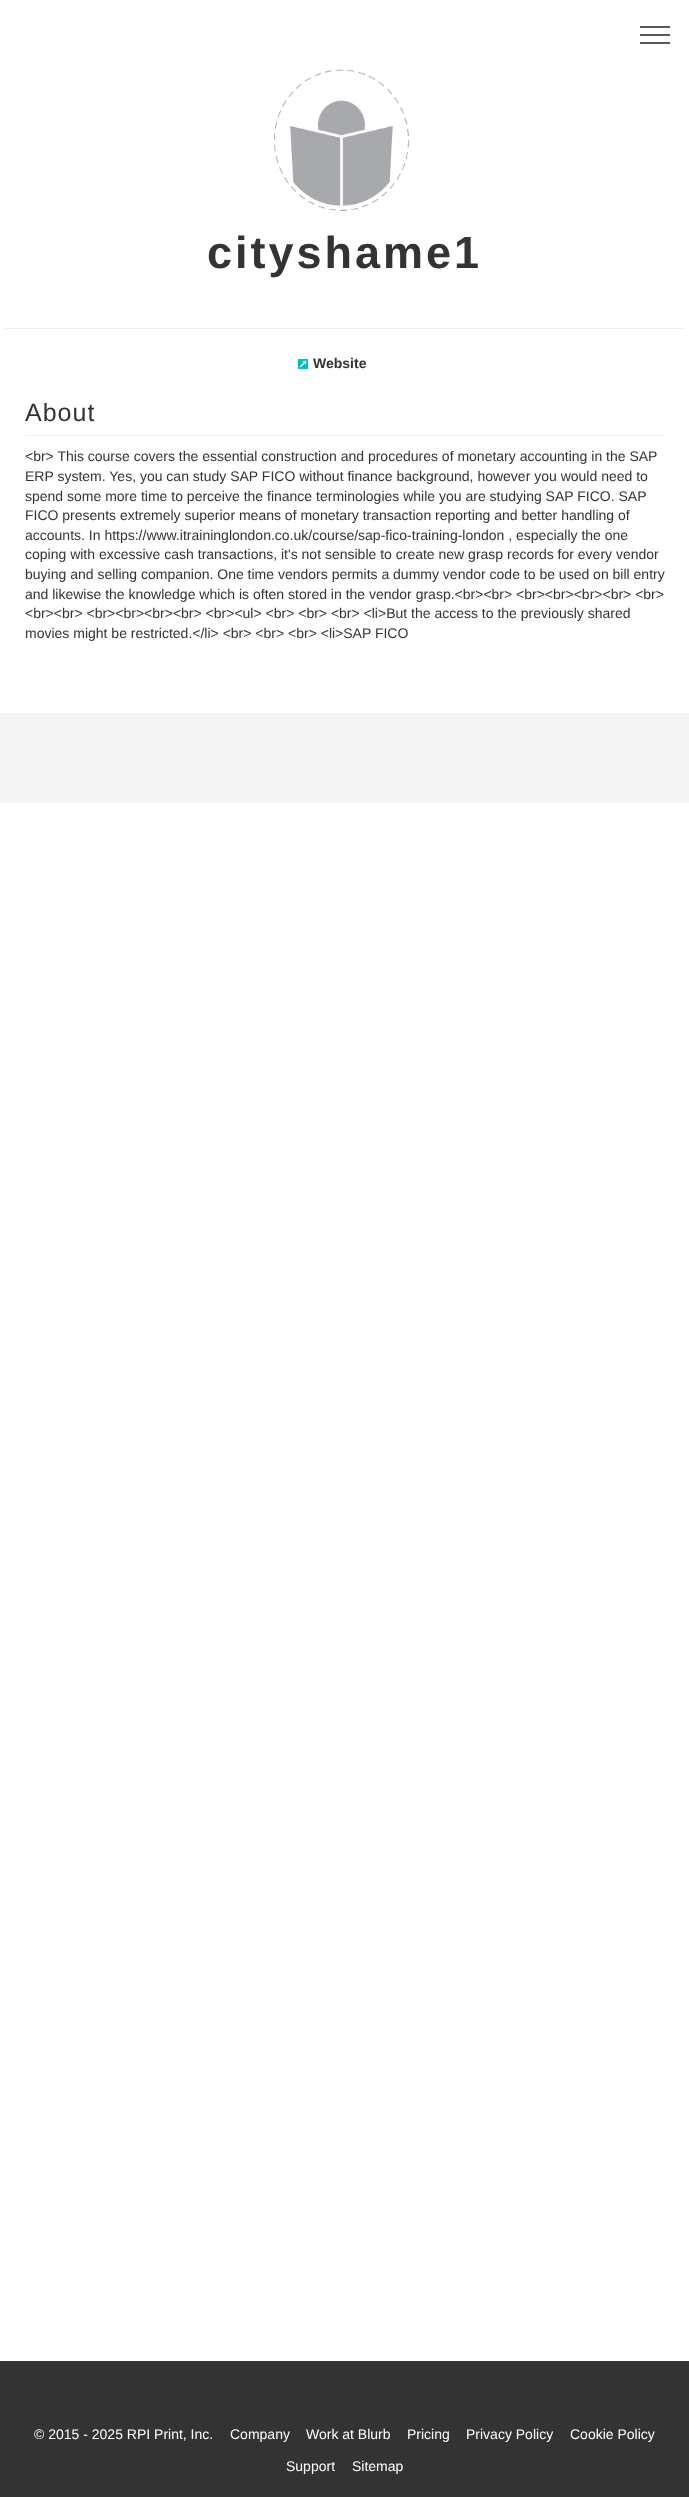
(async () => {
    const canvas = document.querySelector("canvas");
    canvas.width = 689;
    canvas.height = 2497;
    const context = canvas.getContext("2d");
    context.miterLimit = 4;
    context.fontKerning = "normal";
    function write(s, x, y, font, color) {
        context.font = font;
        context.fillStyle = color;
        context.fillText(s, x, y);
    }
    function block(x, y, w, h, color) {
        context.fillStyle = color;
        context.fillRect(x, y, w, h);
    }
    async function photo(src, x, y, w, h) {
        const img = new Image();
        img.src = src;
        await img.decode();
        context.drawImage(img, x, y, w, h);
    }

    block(0, 0, 689, 2497, "rgb(255, 255, 255)");
    block(640, 42, 30, 2, "rgb(89, 89, 89)");
    block(640, 34, 30, 2, "rgb(89, 89, 89)");
    block(640, 26, 30, 2, "rgb(89, 89, 89)");
    await photo("media/1.png", 274, 69, 136, 142);
    context.letterSpacing = "3px";
    write("cityshame1", 207, 268, "bold 45px Liberation Sans", "rgb(51, 51, 51)");
    block(5, 328, 679, 1, "rgb(238, 238, 238)");
    await photo("media/2.png", 298, 359, 10, 10);
    context.letterSpacing = "0px";
    write("Website", 313, 368, "bold 14px Liberation Sans", "rgb(51, 51, 51)");
    context.letterSpacing = "1px";
    write("About", 25, 421, "25px Liberation Sans", "rgb(51, 51, 51)");
    block(25, 435, 640, 1, "rgb(238, 238, 238)");
    context.letterSpacing = "0px";
    write("<br> This course covers the essential construction and procedures of monetary accounting in the SAP", 25, 461, "14px Liberation Sans", "rgb(51, 51, 51)");
    write("ERP system. Yes, you can study SAP FICO without finance background, however you would need to", 25, 481, "14px Liberation Sans", "rgb(51, 51, 51)");
    write("spend some more time to perceive the finance terminologies while you are studying SAP FICO. SAP", 25, 501, "14px Liberation Sans", "rgb(51, 51, 51)");
    write("FICO presents extremely superior means of monetary transaction reporting and better handling of", 25, 520, "14px Liberation Sans", "rgb(51, 51, 51)");
    write("accounts. In https://www.itraininglondon.co.uk/course/sap-fico-training-london , especially the one", 25, 540, "14px Liberation Sans", "rgb(51, 51, 51)");
    write("coping with excessive cash transactions, it's not sensible to create new grasp records for every vendor", 25, 559, "14px Liberation Sans", "rgb(51, 51, 51)");
    write("buying and selling companion. One time vendors permits a dummy vendor code to be used on bill entry", 25, 579, "14px Liberation Sans", "rgb(51, 51, 51)");
    write("and likewise the knowledge which is often stored in the vendor grasp.<br><br> <br><br><br><br> <br>", 25, 599, "14px Liberation Sans", "rgb(51, 51, 51)");
    write("<br><br> <br><br><br><br> <br><ul> <br> <br> <br> <li>But the access to the previously shared", 25, 618, "14px Liberation Sans", "rgb(51, 51, 51)");
    write("movies might be restricted.<\/li> <br> <br> <br> <li>SAP FICO", 25, 638, "14px Liberation Sans", "rgb(51, 51, 51)");
    block(0, 713, 689, 90, "rgb(245, 245, 245)");
    block(0, 2361, 689, 136, "rgb(51, 51, 51)");
    write("© 2015 - 2025 RPI Print, Inc.", 34, 2439, "14px Liberation Sans", "rgb(255, 255, 255)");
    write("Company", 230, 2439, "14px Liberation Sans", "rgb(255, 255, 255)");
    write("Work at Blurb", 306, 2439, "14px Liberation Sans", "rgb(255, 255, 255)");
    write("Pricing", 407, 2439, "14px Liberation Sans", "rgb(255, 255, 255)");
    write("Privacy Policy", 466, 2439, "14px Liberation Sans", "rgb(255, 255, 255)");
    write("Cookie Policy", 570, 2439, "14px Liberation Sans", "rgb(255, 255, 255)");
    write("Support", 286, 2471, "14px Liberation Sans", "rgb(255, 255, 255)");
    write("Sitemap", 352, 2471, "14px Liberation Sans", "rgb(255, 255, 255)");
})();
